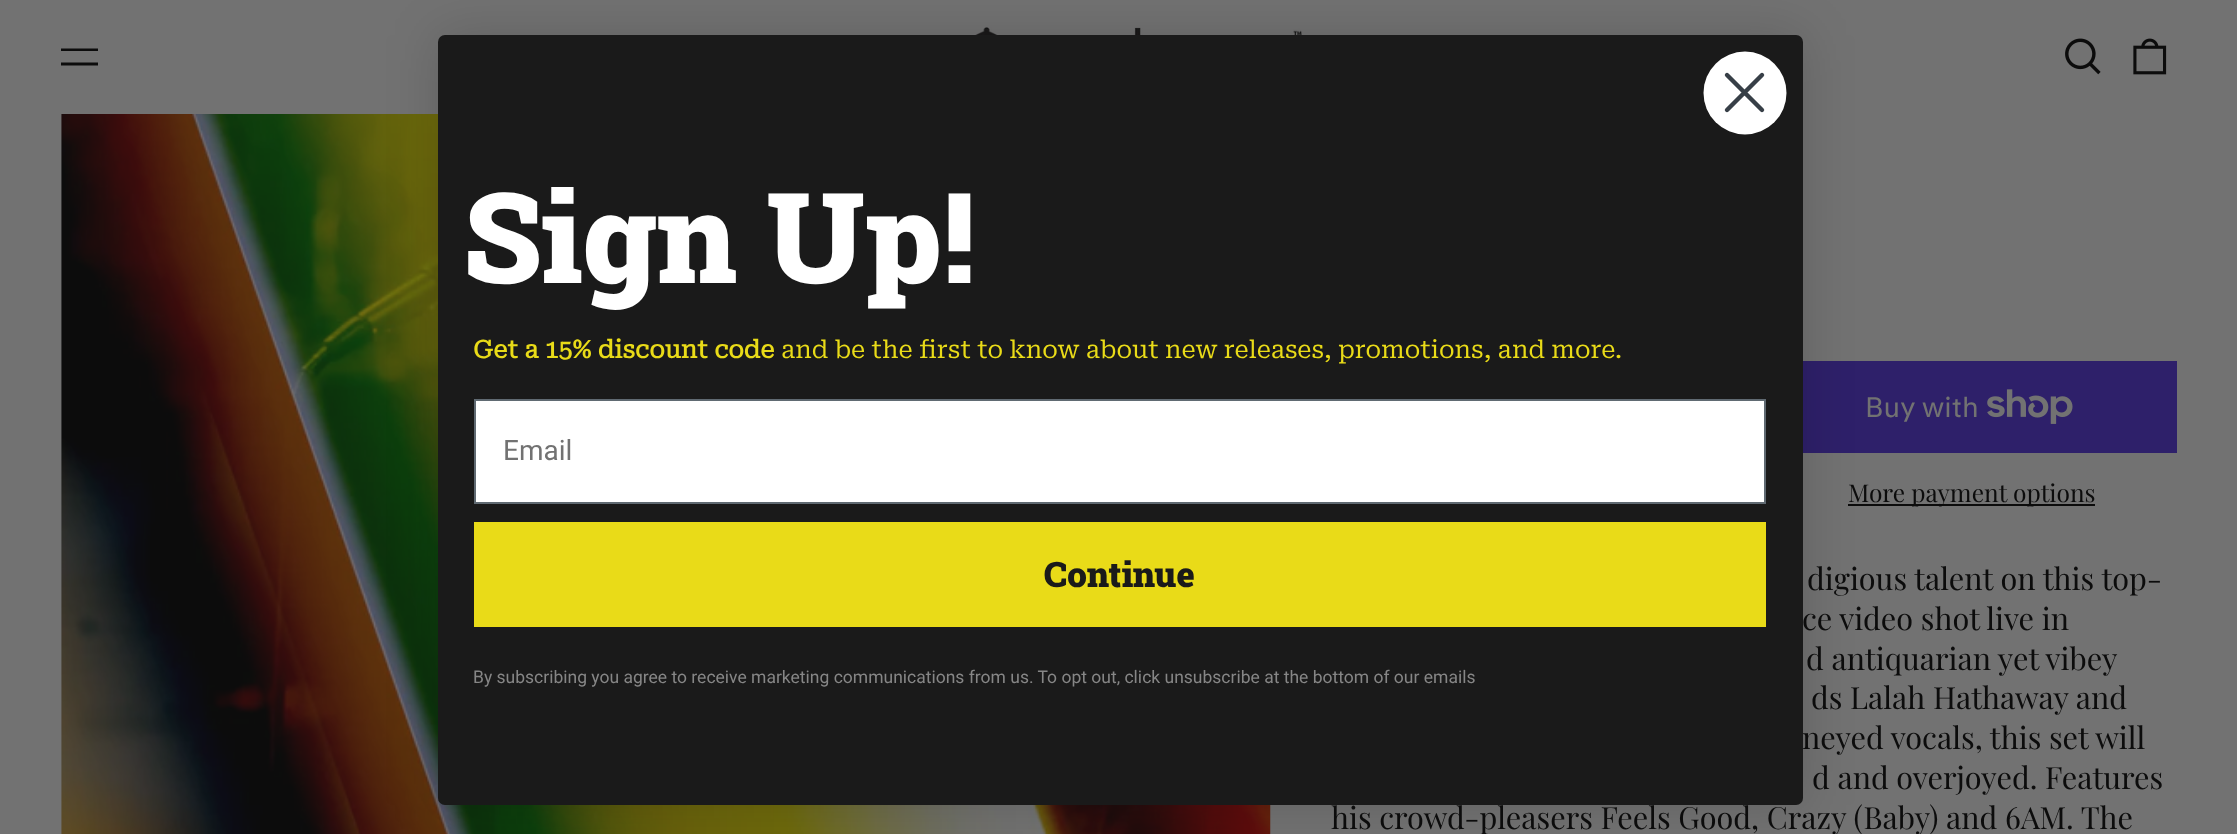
(async () => {
    const canvas = document.querySelector("canvas");
    canvas.width = 2237;
    canvas.height = 834;
    const context = canvas.getContext("2d");
    context.miterLimit = 4;
    context.fontKerning = "normal";
    function write(s, x, y, font, color) {
        context.font = font;
        context.fillStyle = color;
        context.fillText(s, x, y);
    }
    function block(x, y, w, h, color) {
        context.fillStyle = color;
        context.fillRect(x, y, w, h);
    }
    function card(x, y, w, h, r, color) {
        context.fillStyle = color;
        context.beginPath();
        context.roundRect(x, y, w, h, r);
        context.fill();
    }
    async function photo(src, x, y, w, h) {
        const img = new Image();
        img.src = src;
        await img.decode();
        context.drawImage(img, x, y, w, h);
    }

    block(0, 0, 2237, 834, "rgb(114, 114, 114)");
    await photo("media/1.png", 937, 27, 366, 8);
    context.fillStyle = "rgb(12, 12, 12)";
    context.beginPath();
    context.moveTo(98, 62.5);
    context.lineTo(98, 65.5);
    context.lineTo(61, 65.5);
    context.lineTo(61, 62.5);
    context.closePath();
    context.moveTo(98, 48.5);
    context.lineTo(98, 51);
    context.lineTo(61, 51);
    context.lineTo(61, 48.5);
    context.closePath();
    context.fill("evenodd");
    await photo("media/2.png", 2065, 38, 36, 37);
    await photo("media/3.png", 2133, 38, 34, 37);
    await photo("media/4.png", 61, 114, 1210, 720);
    block(1803, 361, 374, 92, "rgb(46, 32, 106)");
    block(1848, 504, 247, 2, "rgb(12, 12, 12)");
    context.fillStyle = "rgba(0, 0, 0, 0.15)";
    context.filter = "blur(26px)";
    context.beginPath();
    context.roundRect(438, 35, 1365, 770, 7);
    context.fill();
    context.filter = "none";
    write("neyed vocals, this set will", 1802, 749, "30.6px Playfair Display", "rgb(12, 12, 12)");
    write("his crowd-pleasers Feels Good, Crazy (Baby) and 6AM. The", 1331, 829, "30.6px Playfair Display", "rgb(12, 12, 12)");
    card(438, 35, 1365, 770, 7, "rgb(26, 26, 26)");
    context.fillStyle = "rgb(255, 255, 255)";
    context.beginPath();
    context.arc(1745, 93, 41.5, 0, Math.PI * 2);
    context.fill();
    context.beginPath();
    context.moveTo(1727, 75);
    context.lineTo(1762, 110);
    context.moveTo(1727, 110);
    context.lineTo(1762, 75);
    context.closePath();
    context.strokeStyle = "rgb(55, 63, 71)";
    context.lineWidth = 4.4;
    context.lineCap = "round";
    context.lineJoin = "round";
    context.stroke();
    write("Sign Up!", 463, 283, "900 126px Roboto Slab", "rgb(255, 255, 255)");
    write("Get a 15% discount code", 473, 358, "bold 24.5px Roboto Serif", "rgb(233, 219, 24)");
    write("and be the first to know about new releases, promotions, and more.", 781, 358, "24.5px Roboto Serif", "rgb(233, 219, 24)");
    context.fillStyle = "rgb(255, 255, 255)";
    context.beginPath();
    context.rect(475, 400, 1290, 103);
    context.fill();
    context.strokeStyle = "rgb(96, 106, 114)";
    context.lineWidth = 2;
    context.lineJoin = "miter";
    context.stroke();
    write("Email", 503, 460, "28px Roboto", "rgb(114, 114, 114)");
    block(474, 522, 1292, 105, "rgb(233, 219, 24)");
    write("Continue", 1044, 587, "900 35px Roboto Slab", "rgb(26, 26, 26)");
    write("By subscribing you agree to receive marketing communications from us. To opt out, click unsubscribe at the bottom of our emails", 473, 683, "17.5px Roboto", "rgb(134, 134, 134)");
    write("Buy with", 1865, 417, "28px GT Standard", "rgb(114, 114, 114)");
    await photo("media/5.png", 1987, 389, 86, 35);
    write("More payment options", 1848, 502, "24.5px Playfair Display", "rgb(12, 12, 12)");
    write("digious talent on this top-", 1807, 590, "30.6px Playfair Display", "rgb(12, 12, 12)");
    write("ce video shot live in", 1802, 630, "30.6px Playfair Display", "rgb(12, 12, 12)");
    write("d antiquarian yet vibey", 1806, 670, "30.6px Playfair Display", "rgb(12, 12, 12)");
    write("ds Lalah Hathaway and", 1811, 709, "30.6px Playfair Display", "rgb(12, 12, 12)");
    write("d and overjoyed. Features", 1812, 789, "30.6px Playfair Display", "rgb(12, 12, 12)");
})();
